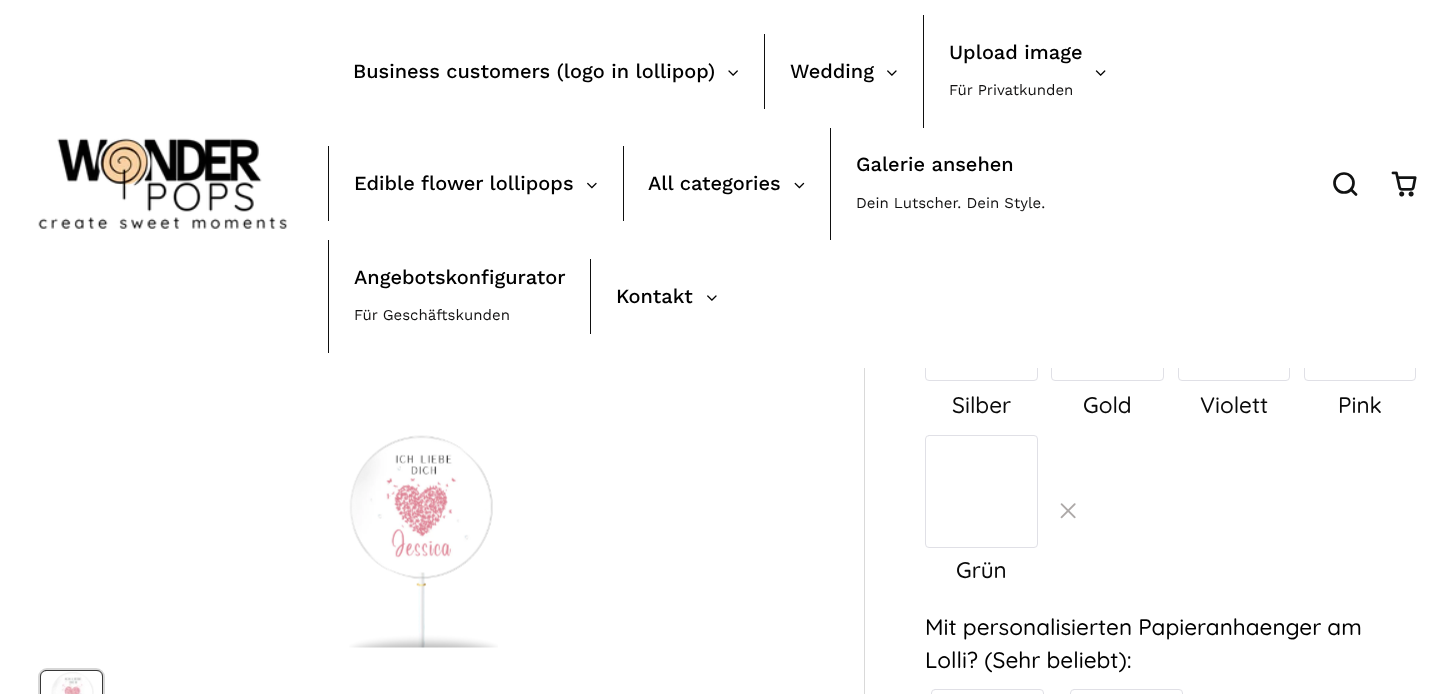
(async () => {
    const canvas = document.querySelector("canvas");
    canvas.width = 1455;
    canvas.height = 694;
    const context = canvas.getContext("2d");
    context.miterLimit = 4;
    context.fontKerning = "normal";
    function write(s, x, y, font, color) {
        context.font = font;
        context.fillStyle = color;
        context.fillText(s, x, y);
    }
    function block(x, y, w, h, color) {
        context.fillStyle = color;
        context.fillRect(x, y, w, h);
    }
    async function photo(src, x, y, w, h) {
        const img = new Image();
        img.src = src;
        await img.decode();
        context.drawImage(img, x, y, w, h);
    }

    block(0, 0, 1455, 694, "rgb(255, 255, 255)");
    context.beginPath();
    context.roundRect(925.5, 269.5, 112, 111, 3.5);
    context.strokeStyle = "rgb(224, 224, 230)";
    context.stroke();
    context.beginPath();
    context.roundRect(1051.5, 269.5, 112, 111, 3.5);
    context.stroke();
    context.beginPath();
    context.roundRect(1178.5, 269.5, 111, 111, 3.5);
    context.stroke();
    context.beginPath();
    context.roundRect(1304.5, 269.5, 111, 111, 3.5);
    context.stroke();
    block(925, 269, 491, 99, "rgb(255, 255, 255)");
    await photo("media/1.png", 38, 138, 250, 91);
    write("Business customers (logo in lollipop)", 353, 78, "500 20px Work Sans", "rgb(0, 0, 0)");
    await photo("media/2.png", 728, 70, 10, 6);
    block(764, 34, 1, 75, "rgb(15, 15, 15)");
    write("Wedding", 790, 78, "500 20px Work Sans", "rgb(0, 0, 0)");
    await photo("media/3.png", 887, 70, 10, 6);
    block(923, 15, 1, 113, "rgb(15, 15, 15)");
    write("Upload image", 949, 59, "500 20px Work Sans", "rgb(0, 0, 0)");
    write("Für Privatkunden", 949, 95, "15px Work Sans", "rgb(18, 17, 17)");
    await photo("media/4.png", 1095, 70, 11, 6);
    block(328, 146, 1, 75, "rgb(15, 15, 15)");
    write("Edible flower lollipops", 354, 190, "500 20px Work Sans", "rgb(0, 0, 0)");
    await photo("media/5.png", 587, 182, 10, 7);
    block(623, 146, 1, 75, "rgb(15, 15, 15)");
    write("All categories", 648, 190, "500 20px Work Sans", "rgb(0, 0, 0)");
    await photo("media/6.png", 794, 182, 11, 7);
    block(830, 128, 1, 112, "rgb(15, 15, 15)");
    write("Galerie ansehen", 856, 171, "500 20px Work Sans", "rgb(0, 0, 0)");
    write("Dein Lutscher. Dein Style.", 856, 208, "15px Work Sans", "rgb(18, 17, 17)");
    block(328, 240, 1, 113, "rgb(15, 15, 15)");
    write("Angebotskonfigurator", 354, 284, "500 20px Work Sans", "rgb(0, 0, 0)");
    write("Für Geschäftskunden", 354, 320, "15px Work Sans", "rgb(18, 17, 17)");
    block(590, 259, 1, 75, "rgb(15, 15, 15)");
    write("Kontakt", 616, 303, "500 20px Work Sans", "rgb(0, 0, 0)");
    await photo("media/3.png", 707, 295, 10, 6);
    context.beginPath();
    context.arc(1344, 183, 9.5, 0, Math.PI * 2);
    context.strokeStyle = "rgb(17, 18, 18)";
    context.lineWidth = 2.7;
    context.stroke();
    context.beginPath();
    context.moveTo(1356, 194.5);
    context.lineTo(1351, 189.5);
    context.lineCap = "round";
    context.lineJoin = "round";
    context.stroke();
    await photo("media/7.png", 1391, 171, 26, 26);
    block(864, 368, 1, 326, "rgb(217, 217, 217)");
    await photo("media/8.png", 349, 435, 149, 213);
    context.beginPath();
    context.roundRect(39.5, 669.5, 64, 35, 7.5);
    context.strokeStyle = "rgb(215, 215, 215)";
    context.lineWidth = 3;
    context.lineJoin = "miter";
    context.stroke();
    context.beginPath();
    context.roundRect(40.5, 670.5, 62, 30, 5.5);
    context.strokeStyle = "rgb(56, 56, 56)";
    context.lineWidth = 1;
    context.stroke();
    await photo("media/9.png", 51, 672, 43, 22);
    write("Silber", 952, 413, "500 22.5px Quicksand", "rgb(10, 10, 10)");
    write("Gold", 1083, 413, "500 22.5px Quicksand", "rgb(10, 10, 10)");
    write("Violett", 1200, 413, "500 22.5px Quicksand", "rgb(10, 10, 10)");
    write("Pink", 1338, 413, "500 22.5px Quicksand", "rgb(10, 10, 10)");
    await photo("media/10.png", 1060, 503, 16, 16);
    context.beginPath();
    context.roundRect(925.5, 435.5, 112, 112, 3.5);
    context.strokeStyle = "rgb(224, 224, 230)";
    context.stroke();
    write("Grün", 956, 578, "500 22.5px Quicksand", "rgb(10, 10, 10)");
    write("Mit personalisierten Papieranhaenger am", 925, 635, "500 22.5px Quicksand", "rgb(0, 0, 0)");
    write("Lolli? (Sehr beliebt):", 925, 668, "500 22.5px Quicksand", "rgb(0, 0, 0)");
    context.beginPath();
    context.roundRect(931.5, 689.5, 112, 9, 3.5);
    context.stroke();
    context.beginPath();
    context.roundRect(1070.5, 689.5, 112, 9, 3.5);
    context.stroke();
})();
